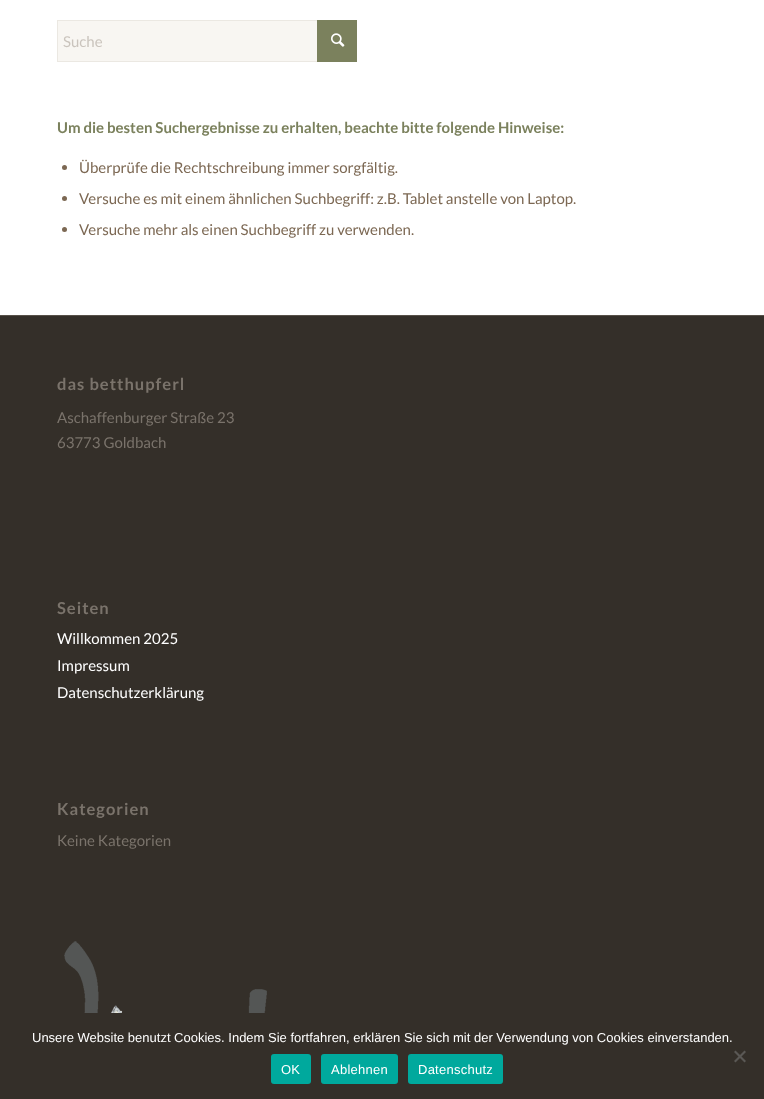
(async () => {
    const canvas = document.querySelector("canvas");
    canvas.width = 764;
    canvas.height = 1099;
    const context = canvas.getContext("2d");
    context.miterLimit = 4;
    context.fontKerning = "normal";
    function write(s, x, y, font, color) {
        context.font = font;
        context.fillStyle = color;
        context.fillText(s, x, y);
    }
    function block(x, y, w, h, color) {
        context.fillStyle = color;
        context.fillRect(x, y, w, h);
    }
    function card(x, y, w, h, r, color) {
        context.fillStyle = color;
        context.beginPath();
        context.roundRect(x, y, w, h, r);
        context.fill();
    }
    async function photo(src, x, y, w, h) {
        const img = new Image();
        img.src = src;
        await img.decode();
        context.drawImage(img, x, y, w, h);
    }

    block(0, 0, 764, 1099, "rgb(255, 255, 255)");
    block(58, 21, 259, 40, "rgb(248, 246, 242)");
    context.strokeStyle = "rgb(235, 232, 226)";
    context.strokeRect(57.5, 20.5, 299, 41);
    write("Suche", 63, 47, "15px Lato", "rgb(202, 196, 189)");
    block(317, 20, 40, 42, "rgb(123, 129, 93)");
    await photo("media/1.png", 331, 33, 14, 14);
    write("Um die besten Suchergebnisse zu erhalten, beachte bitte folgende Hinweise:", 57, 133, "bold 15px Lato", "rgb(123, 129, 93)");
    context.fillStyle = "rgb(124, 104, 83)";
    context.beginPath();
    context.arc(64.5, 167.5, 2.5, 0, Math.PI * 2);
    context.fill();
    write("Überprüfe die Rechtschreibung immer sorgfältig.", 79, 173, "15px Lato", "rgb(124, 104, 83)");
    context.beginPath();
    context.arc(64.5, 198.5, 2.5, 0, Math.PI * 2);
    context.fill();
    write("Versuche es mit einem ähnlichen Suchbegriff: z.B. Tablet anstelle von Laptop.", 79, 204, "15px Lato", "rgb(124, 104, 83)");
    context.beginPath();
    context.arc(64.5, 229.5, 2.5, 0, Math.PI * 2);
    context.fill();
    write("Versuche mehr als einen Suchbegriff zu verwenden.", 79, 235, "15px Lato", "rgb(124, 104, 83)");
    block(0, 316, 764, 783, "rgb(52, 47, 41)");
    block(0, 315, 764, 1, "rgb(87, 81, 73)");
    context.letterSpacing = "1px";
    write("das betthupferl", 57, 390, "bold 16.5px Lato", "rgb(122, 115, 107)");
    context.letterSpacing = "0px";
    write("Aschaffenburger Straße 23", 57, 423, "15px Lato", "rgb(122, 115, 107)");
    write("63773 Goldbach", 57, 448, "15px Lato", "rgb(122, 115, 107)");
    context.letterSpacing = "1px";
    write("Seiten", 57, 614, "bold 16.5px Lato", "rgb(122, 115, 107)");
    context.letterSpacing = "0px";
    write("Willkommen 2025", 57, 644, "15px Lato", "rgb(255, 255, 255)");
    write("Impressum", 57, 671, "15px Lato", "rgb(255, 255, 255)");
    write("Datenschutzerklärung", 57, 698, "15px Lato", "rgb(255, 255, 255)");
    context.letterSpacing = "1px";
    write("Kategorien", 57, 815, "bold 16.5px Lato", "rgb(122, 115, 107)");
    context.letterSpacing = "0px";
    write("Keine Kategorien", 57, 846, "15px Lato", "rgb(122, 115, 107)");
    await photo("media/2.png", 64, 941, 203, 72);
    write("Unsere Website benutzt Cookies. Indem Sie fortfahren, erklären Sie sich mit der Verwendung von Cookies einverstanden.", 32, 1042, "13px Liberation Sans", "rgb(255, 255, 255)");
    context.fillStyle = "rgb(90, 88, 85)";
    context.beginPath();
    context.moveTo(744.5, 1050.5);
    context.lineTo(746, 1052);
    context.lineTo(735.5, 1062.5);
    context.lineTo(734, 1061);
    context.closePath();
    context.fill();
    context.beginPath();
    context.moveTo(734, 1052);
    context.lineTo(735.5, 1050.5);
    context.lineTo(746, 1061);
    context.lineTo(744.5, 1062.5);
    context.closePath();
    context.fill();
    card(271, 1054, 40, 30, 3, "rgb(0, 169, 157)");
    context.letterSpacing = "0.25px";
    write("OK", 281, 1074, "13px Liberation Sans", "rgb(255, 255, 255)");
    card(321, 1054, 77, 30, 3, "rgb(0, 169, 157)");
    write("Ablehnen", 331, 1074, "13px Liberation Sans", "rgb(255, 255, 255)");
    card(408, 1054, 95, 30, 3, "rgb(0, 169, 157)");
    write("Datenschutz", 418, 1074, "13px Liberation Sans", "rgb(255, 255, 255)");
})();
